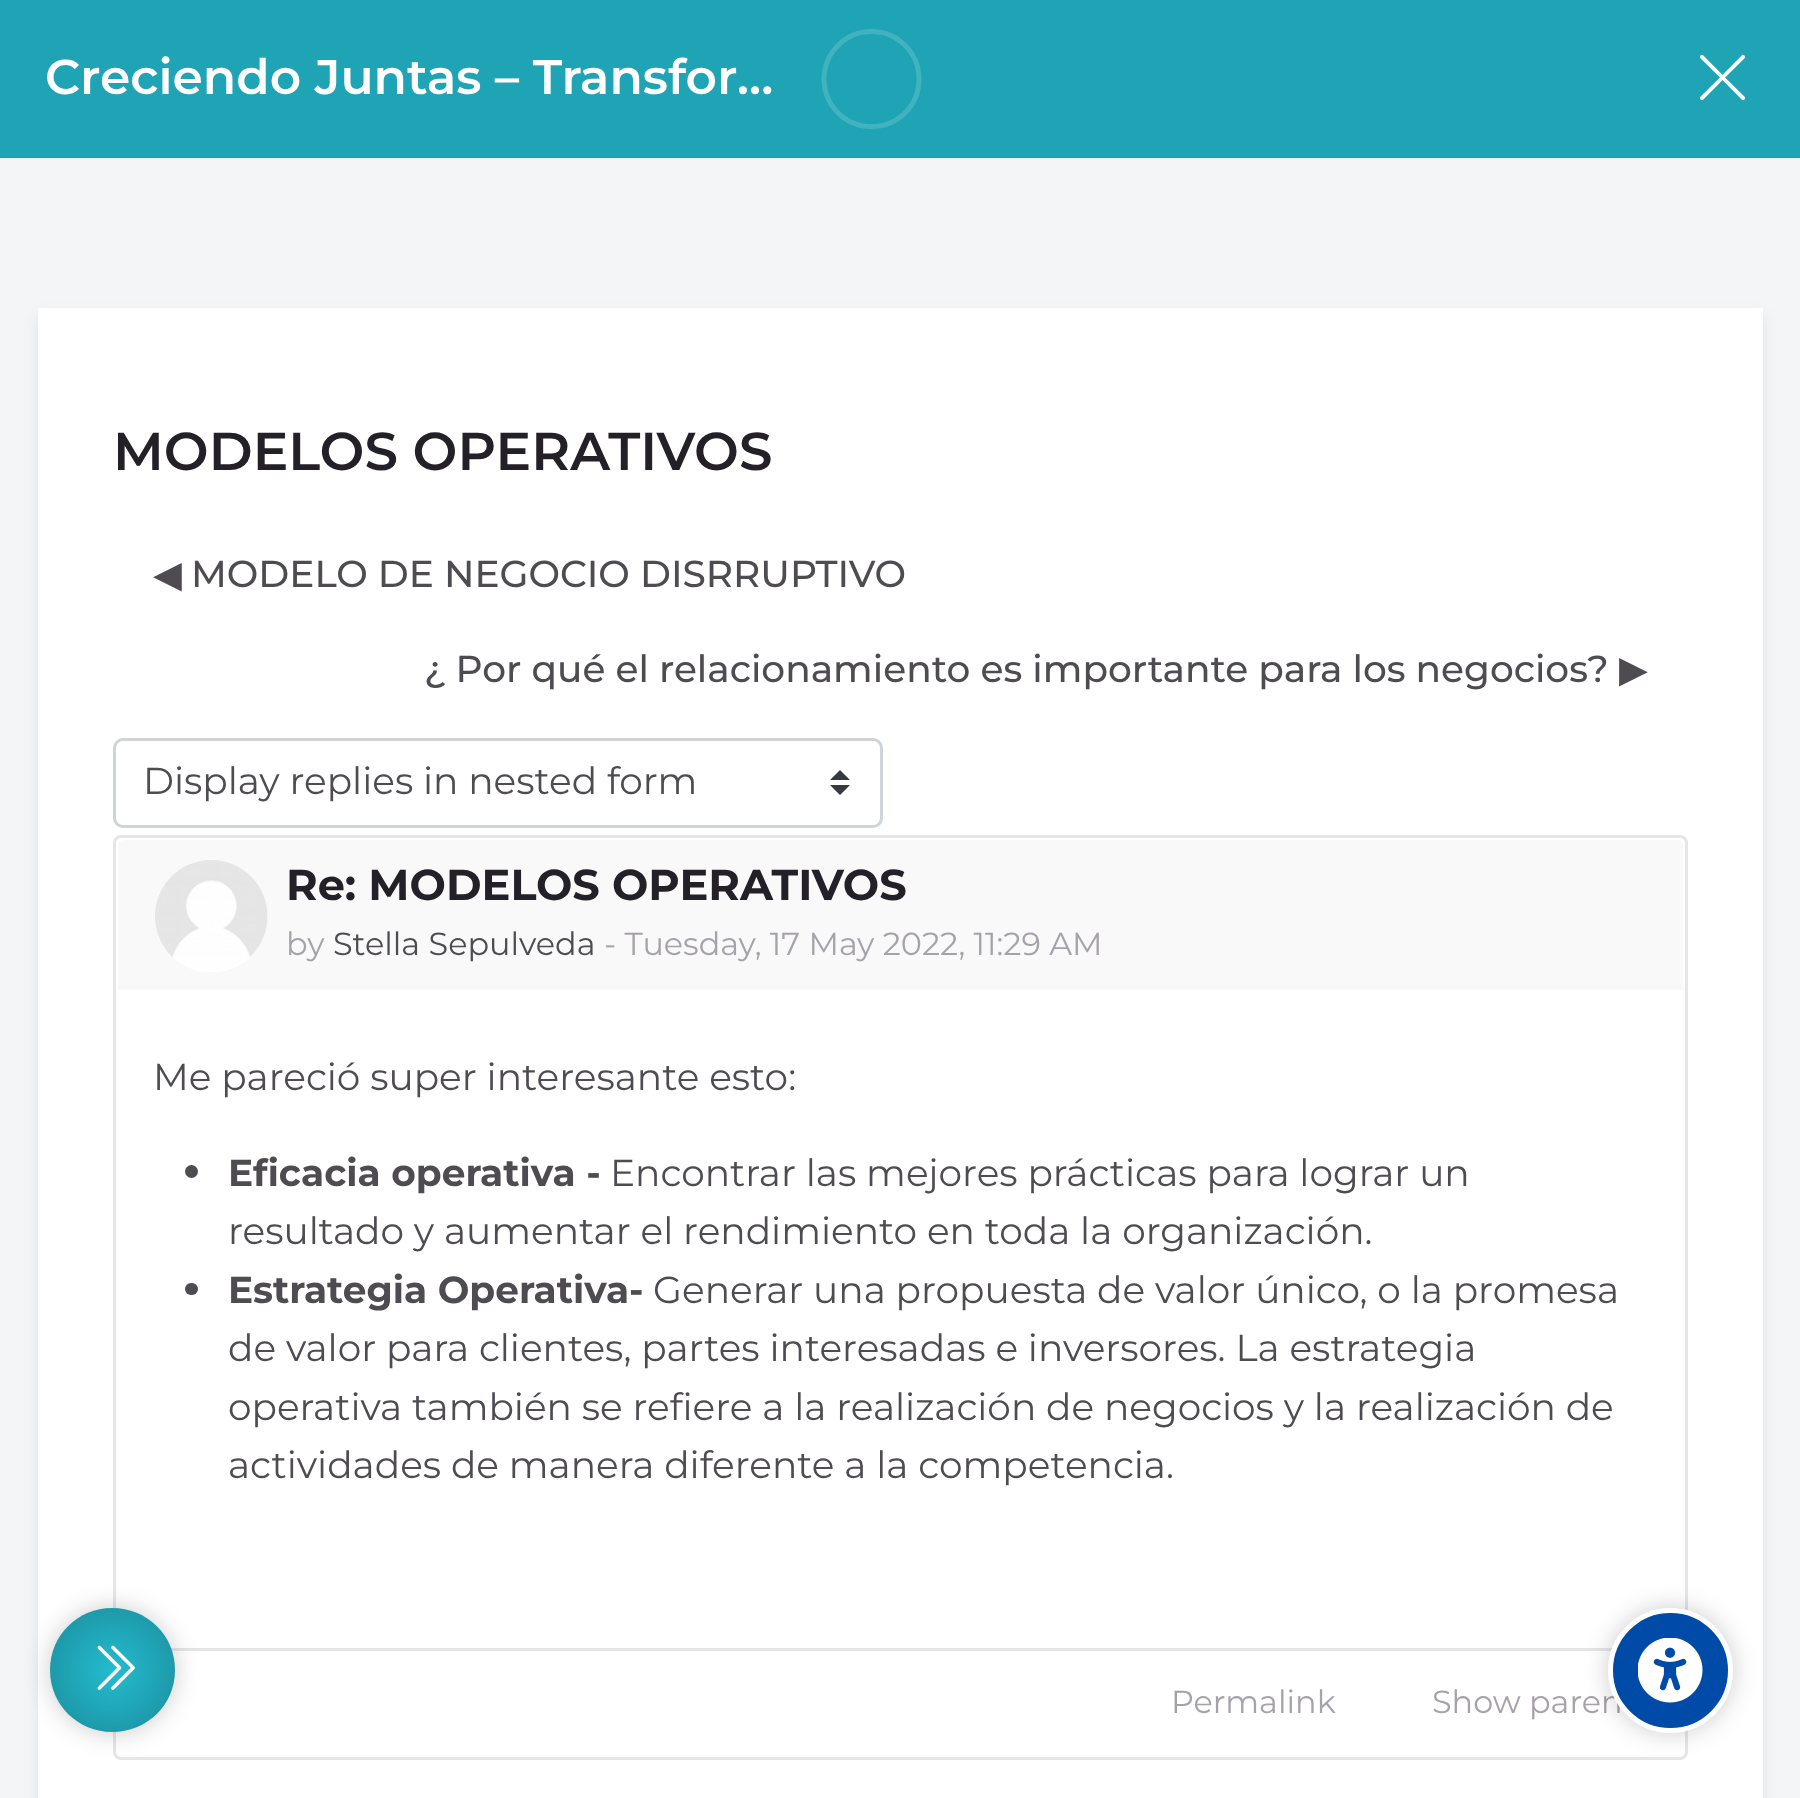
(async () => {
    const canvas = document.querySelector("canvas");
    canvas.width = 1800;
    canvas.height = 1798;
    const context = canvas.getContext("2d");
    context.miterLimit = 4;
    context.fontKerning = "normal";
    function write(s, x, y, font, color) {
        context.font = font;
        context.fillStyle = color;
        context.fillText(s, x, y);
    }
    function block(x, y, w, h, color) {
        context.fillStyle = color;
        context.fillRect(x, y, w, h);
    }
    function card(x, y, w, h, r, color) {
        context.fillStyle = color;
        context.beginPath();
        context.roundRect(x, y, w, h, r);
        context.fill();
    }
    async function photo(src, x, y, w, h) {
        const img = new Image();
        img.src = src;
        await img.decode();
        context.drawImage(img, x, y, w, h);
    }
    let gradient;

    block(0, 0, 1800, 1798, "rgb(244, 245, 246)");
    block(0, 0, 1800, 158, "rgb(31, 164, 181)");
    write("Creciendo Juntas – Transfor…", 45, 94, "600 48.75px Montserrat", "rgb(255, 255, 255)");
    context.beginPath();
    context.moveTo(824, 79);
    context.bezierCurveTo(824, 53, 845.5, 31.5, 871.5, 31.5);
    context.bezierCurveTo(898, 31.5, 919, 53, 919, 79);
    context.bezierCurveTo(919, 105.5, 898, 126.5, 871.5, 126.5);
    context.bezierCurveTo(845.5, 126.5, 824, 105.5, 824, 79);
    context.closePath();
    context.strokeStyle = "rgb(65, 178, 192)";
    context.lineWidth = 5;
    context.stroke();
    await photo("media/1.png", 1699, 54, 47, 47);
    context.fillStyle = "rgba(0, 0, 0, 0.07)";
    context.filter = "blur(7.5px)";
    context.beginPath();
    context.rect(38, 315, 1725, 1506);
    context.fill();
    context.filter = "none";
    block(38, 308, 1725, 1490, "rgb(255, 255, 255)");
    context.beginPath();
    context.roundRect(114.5, 836.5, 1572, 922, 6.5);
    context.strokeStyle = "rgb(230, 230, 230)";
    context.lineWidth = 3;
    context.stroke();
    block(171, 1648, 1442, 3, "rgba(0, 0, 0, 0.1)");
    context.fillStyle = "rgba(0, 0, 0, 0.2)";
    context.filter = "blur(12.5px)";
    context.beginPath();
    context.roundRect(50, 1608, 125, 125, 62.5);
    context.fill();
    context.filter = "none";
    gradient = context.createRadialGradient(113, 1670, 0, 113, 1670, 88);
    gradient.addColorStop(0, "rgb(35, 188, 207)");
    gradient.addColorStop(1, "rgb(27, 140, 155)");
    context.fillStyle = gradient;
    context.beginPath();
    context.moveTo(112, 1608);
    context.bezierCurveTo(78, 1608, 50, 1635, 50, 1670);
    context.bezierCurveTo(50, 1705, 78, 1732, 112, 1732);
    context.bezierCurveTo(147, 1732, 175, 1705, 175, 1670);
    context.bezierCurveTo(175, 1635, 147, 1608, 112, 1608);
    context.closePath();
    context.fill();
    await photo("media/2.png", 97, 1645, 38, 45);
    write("MODELOS OPERATIVOS", 113, 470, "600 53.25px Montserrat", "rgb(36, 32, 39)");
    write("◀︎", 153, 587, "37.5px DejaVu Sans", "rgb(79, 76, 81)");
    write("MODELO DE NEGOCIO DISRRUPTIVO", 191, 587, "500 37.5px Montserrat", "rgb(79, 76, 81)");
    write("¿ Por qué el relacionamiento es importante para los negocios?", 424, 682, "500 37.5px Montserrat", "rgb(79, 76, 81)");
    write("▶︎", 1619, 682, "37.5px DejaVu Sans", "rgb(79, 76, 81)");
    context.fillStyle = "rgb(52, 58, 64)";
    context.beginPath();
    context.moveTo(840, 770);
    context.lineTo(830, 780);
    context.lineTo(850, 780);
    context.closePath();
    context.moveTo(840, 795);
    context.lineTo(830, 785);
    context.lineTo(850, 785);
    context.closePath();
    context.fill();
    context.beginPath();
    context.roundRect(114.5, 739.5, 767, 87, 8.5);
    context.strokeStyle = "rgb(206, 212, 218)";
    context.stroke();
    write("Display replies in nested form", 143, 794, "37.5px Montserrat", "rgb(79, 76, 81)");
    context.fillStyle = "rgb(249, 249, 249)";
    context.beginPath();
    context.roundRect(118, 840, 1565, 150, [6, 6, 0, 0]);
    context.fill();
    await photo("media/3.png", 155, 860, 113, 112);
    write("Re: MODELOS OPERATIVOS", 286, 900, "bold 43.1px Montserrat", "rgb(36, 32, 39)");
    write("by", 286, 955, "31.9px Montserrat", "rgb(166, 162, 169)");
    write("Stella Sepulveda", 333, 955, "31.9px Montserrat", "rgb(79, 76, 81)");
    write("- Tuesday, 17 May 2022, 11:29 AM", 604, 955, "31.9px Montserrat", "rgb(166, 162, 169)");
    write("Me pareció super interesante esto:", 153, 1090, "37.5px Montserrat", "rgb(79, 76, 81)");
    context.beginPath();
    context.arc(191.5, 1171.5, 6.5, 0, Math.PI * 2);
    context.fill();
    write("Eficacia operativa -", 228, 1186, "bold 37.5px Montserrat", "rgb(79, 76, 81)");
    write("Encontrar las mejores prácticas para lograr un", 610, 1186, "37.5px Montserrat", "rgb(79, 76, 81)");
    write("resultado y aumentar el rendimiento en toda la organización.", 228, 1244, "37.5px Montserrat", "rgb(79, 76, 81)");
    card(185, 1283, 13, 12, 6, "rgb(79, 76, 81)");
    write("Estrategia Operativa-", 228, 1303, "bold 37.5px Montserrat", "rgb(79, 76, 81)");
    write("Generar una propuesta de valor único, o la promesa", 653, 1303, "37.5px Montserrat", "rgb(79, 76, 81)");
    write("de valor para clientes, partes interesadas e inversores. La estrategia", 228, 1361, "37.5px Montserrat", "rgb(79, 76, 81)");
    write("operativa también se refiere a la realización de negocios y la realización de", 228, 1420, "37.5px Montserrat", "rgb(79, 76, 81)");
    write("actividades de manera diferente a la competencia.", 228, 1478, "37.5px Montserrat", "rgb(79, 76, 81)");
    write("Permalink", 1171, 1713, "31.9px Montserrat", "rgb(166, 162, 169)");
    write("Show paren", 1432, 1713, "31.9px Montserrat", "rgb(166, 162, 169)");
    context.fillStyle = "rgba(0, 0, 0, 0.2)";
    context.filter = "blur(12.5px)";
    context.beginPath();
    context.roundRect(1608, 1608, 125, 125, 62.5);
    context.fill();
    context.filter = "none";
    context.fillStyle = "rgb(0, 75, 168)";
    context.beginPath();
    context.arc(1670.5, 1670.5, 60, 0, Math.PI * 2);
    context.fill();
    context.strokeStyle = "rgb(255, 255, 255)";
    context.lineWidth = 5;
    context.stroke();
    await photo("media/4.png", 1638, 1638, 65, 65);
})();
